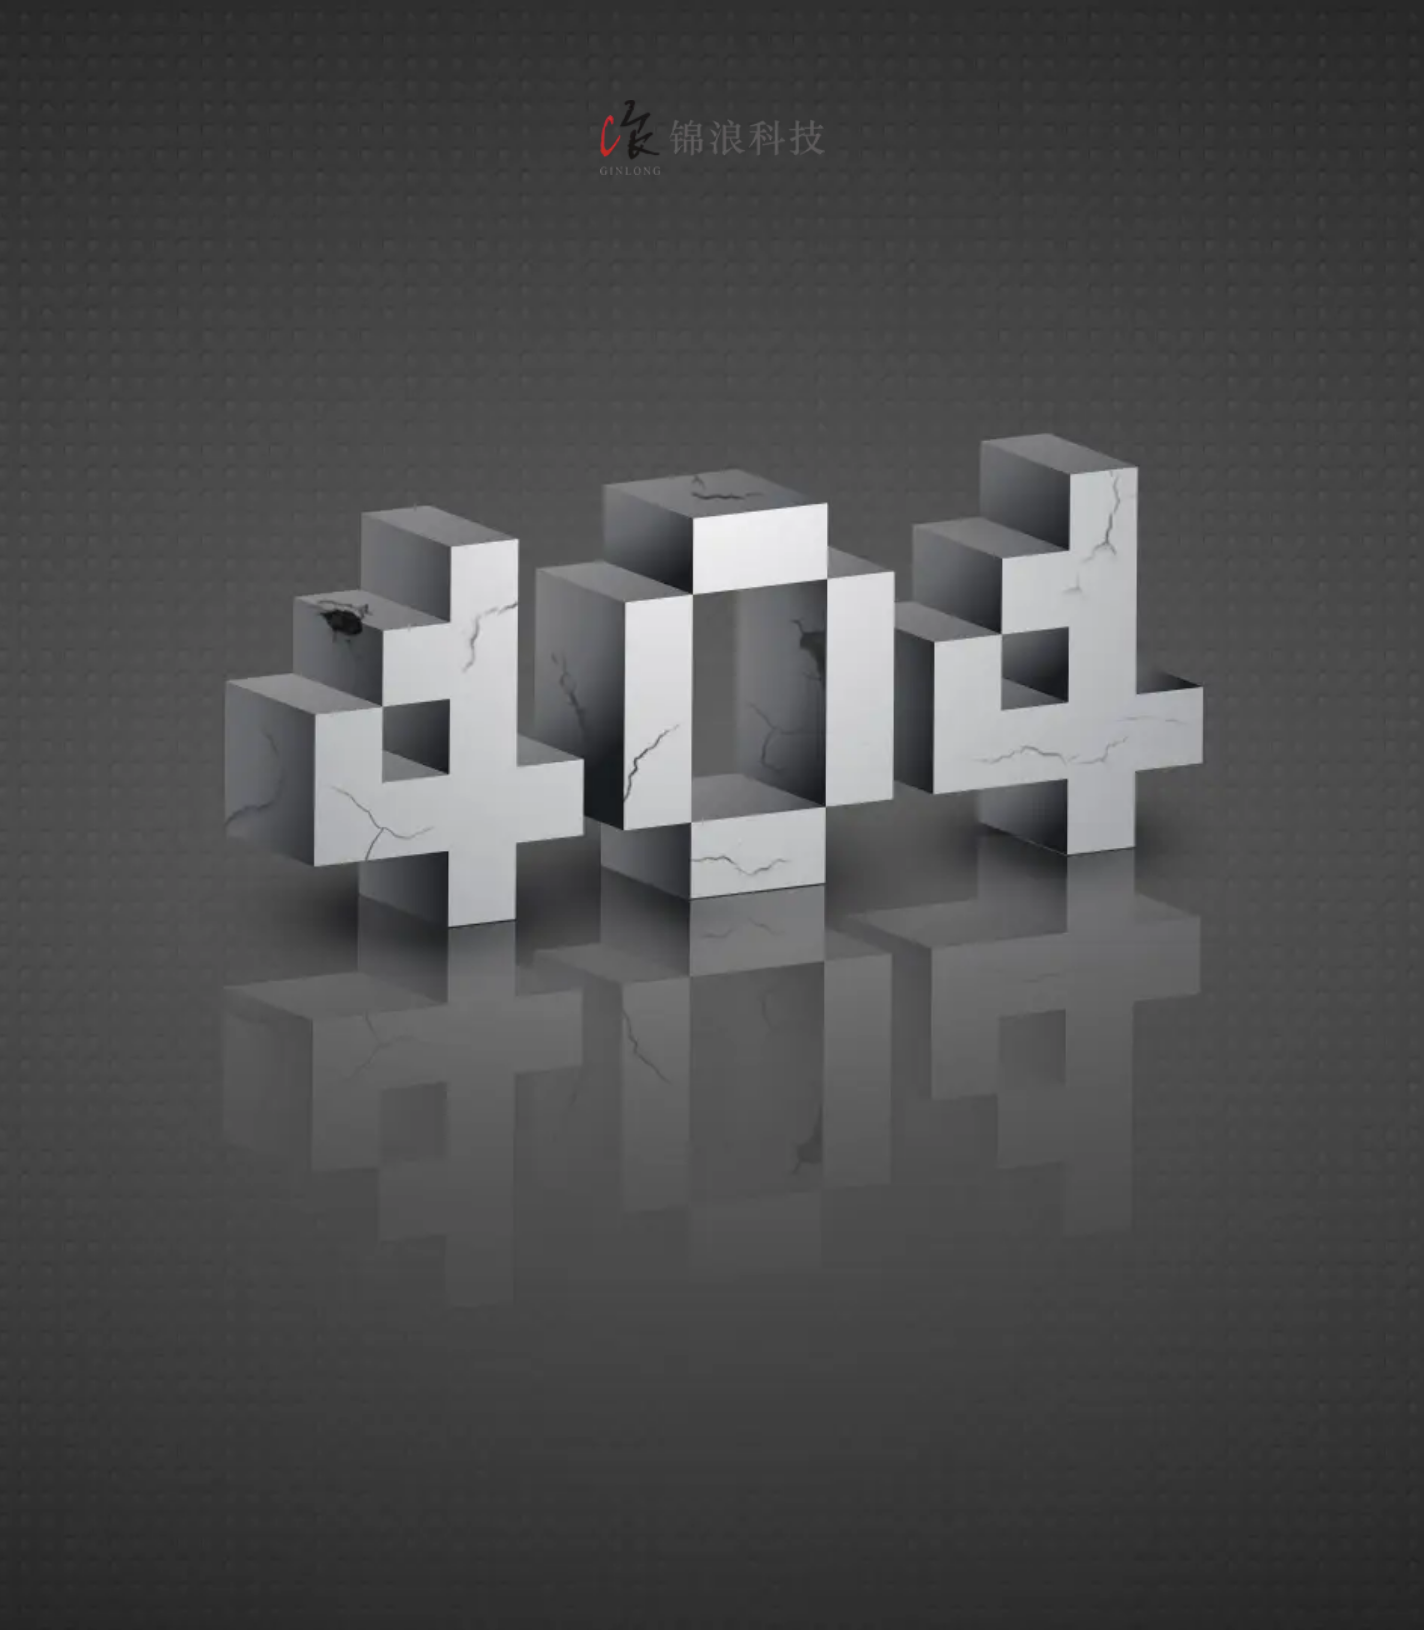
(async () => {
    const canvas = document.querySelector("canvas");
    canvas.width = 1424;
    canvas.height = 1630;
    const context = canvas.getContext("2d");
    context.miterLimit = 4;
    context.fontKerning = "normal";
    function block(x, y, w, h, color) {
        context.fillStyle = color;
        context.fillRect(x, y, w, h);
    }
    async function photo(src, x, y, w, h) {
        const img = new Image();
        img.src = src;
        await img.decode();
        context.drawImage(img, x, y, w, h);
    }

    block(0, 0, 1424, 1630, "rgb(255, 255, 255)");
    await photo("media/1.png", 0, 0, 1424, 1630);
    await photo("media/2.png", 600, 100, 225, 75);
})();
